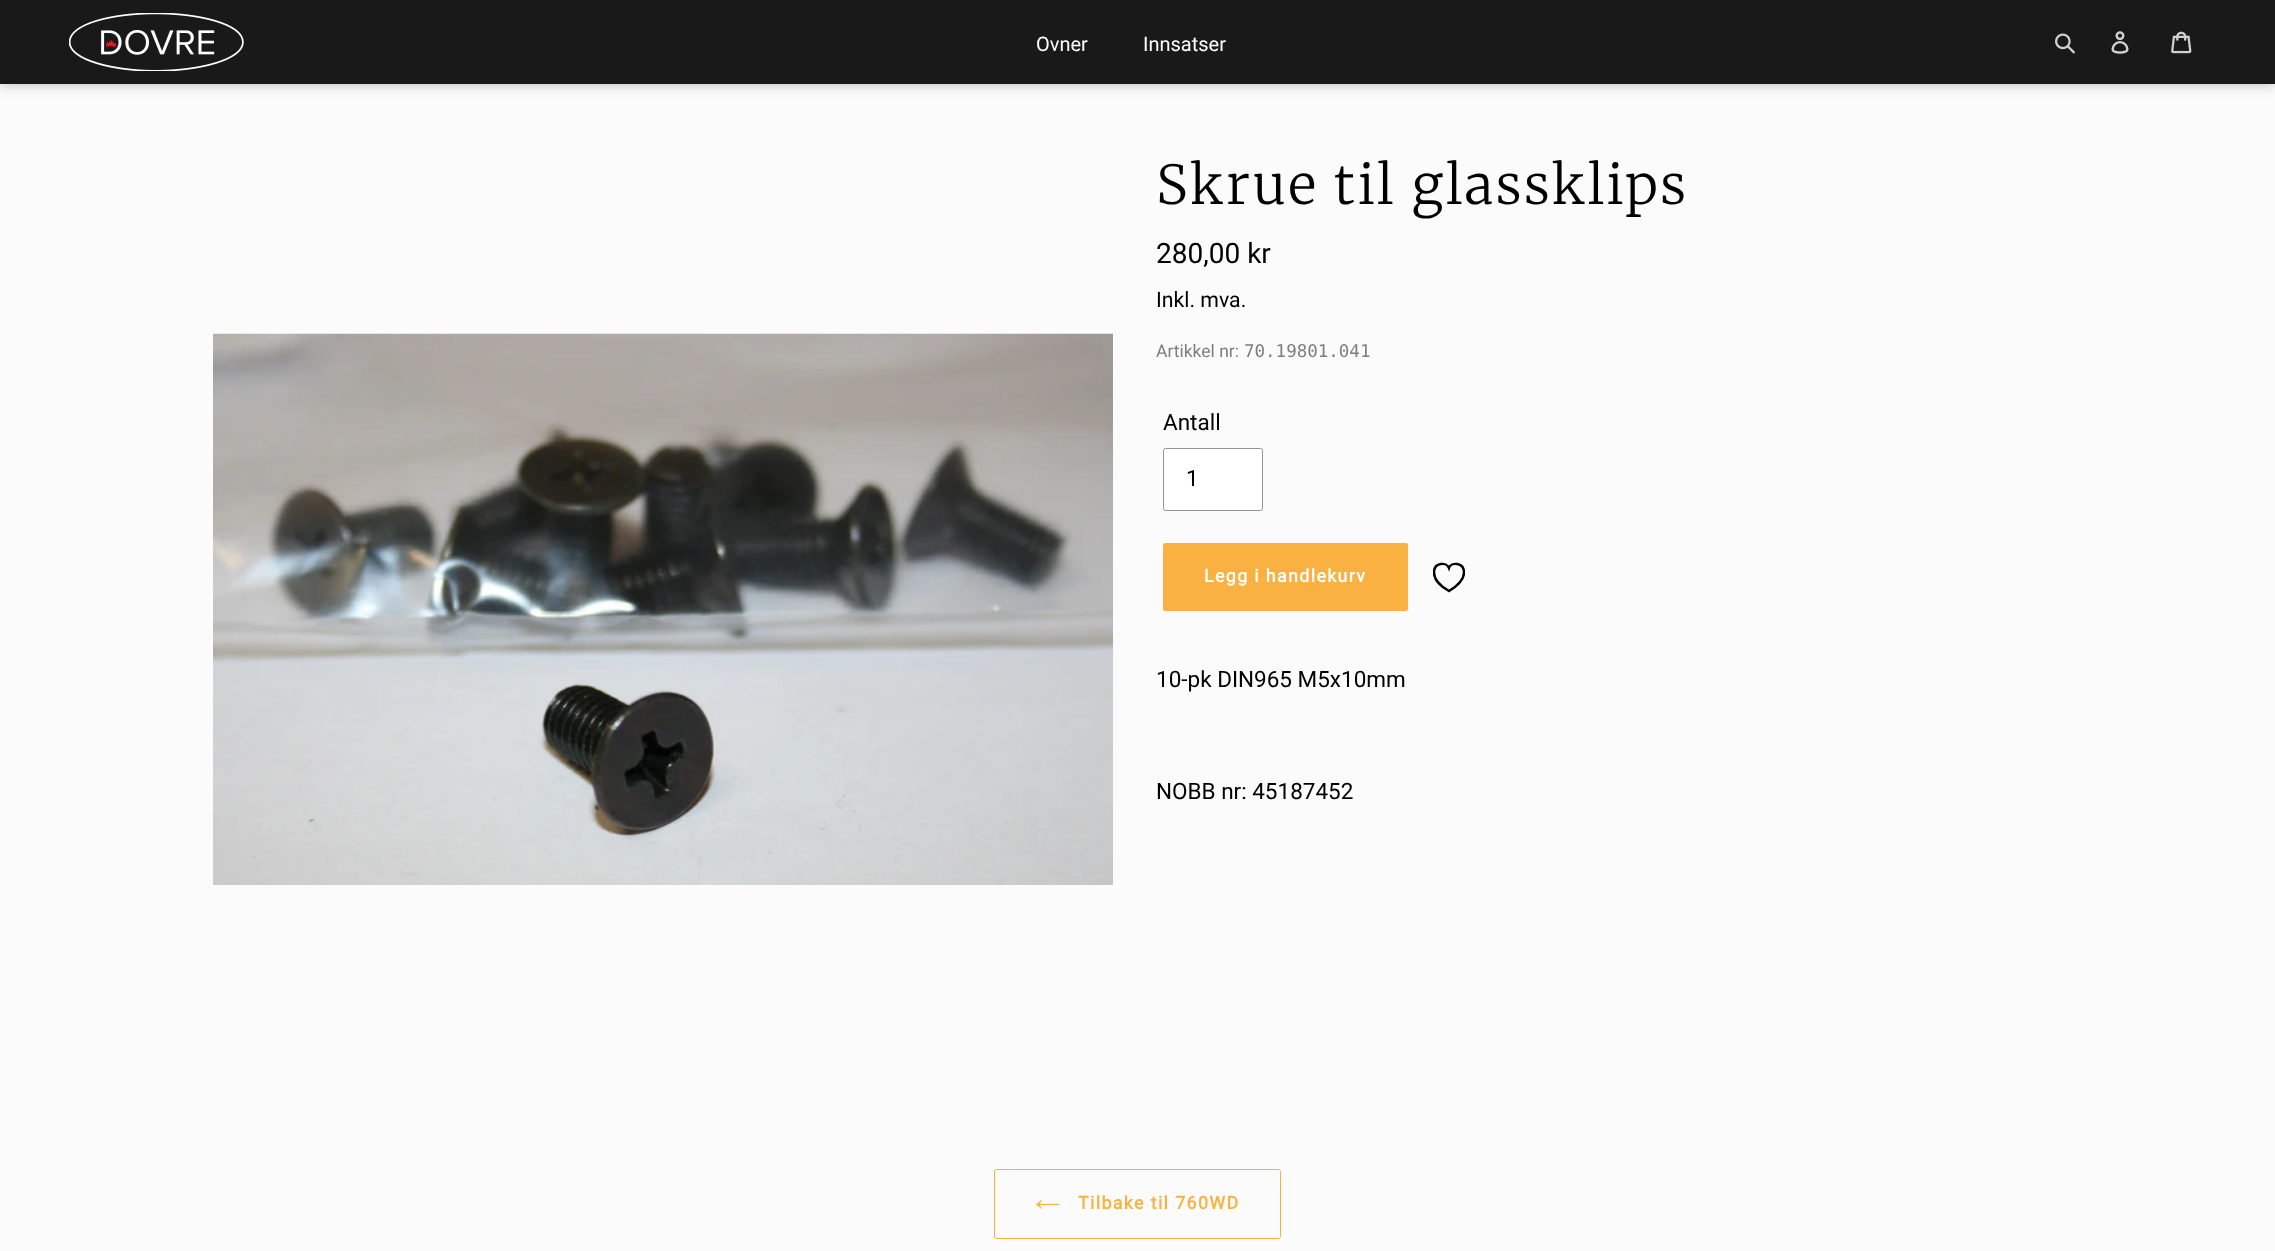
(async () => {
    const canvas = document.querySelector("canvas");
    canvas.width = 2275;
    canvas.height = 1251;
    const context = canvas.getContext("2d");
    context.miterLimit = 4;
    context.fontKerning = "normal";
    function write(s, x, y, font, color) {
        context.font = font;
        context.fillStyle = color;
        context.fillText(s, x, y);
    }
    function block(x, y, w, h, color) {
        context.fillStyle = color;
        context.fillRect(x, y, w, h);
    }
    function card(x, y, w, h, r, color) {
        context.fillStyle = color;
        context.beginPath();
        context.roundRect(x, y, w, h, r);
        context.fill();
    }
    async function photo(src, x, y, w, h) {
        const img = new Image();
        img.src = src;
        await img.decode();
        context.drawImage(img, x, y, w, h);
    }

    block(0, 0, 2275, 1251, "rgb(251, 251, 251)");
    block(0, 0, 2275, 84, "rgb(25, 25, 25)");
    context.save();
    context.beginPath();
    context.moveTo(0, 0);
    context.lineTo(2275, 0);
    context.lineTo(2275, 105);
    context.lineTo(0, 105);
    context.closePath();
    context.moveTo(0, 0);
    context.lineTo(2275, 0);
    context.lineTo(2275, 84);
    context.lineTo(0, 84);
    context.closePath();
    context.clip("evenodd");
    context.fillStyle = "rgba(0, 0, 0, 0.2)";
    context.filter = "blur(6px)";
    context.beginPath();
    context.rect(0, 3, 2275, 83);
    context.fill();
    context.filter = "none";
    context.restore();
    await photo("media/1.png", 69, 13, 175, 58);
    write("Ovner", 1036, 51, "20px Roboto", "rgb(255, 255, 255)");
    write("Innsatser", 1143, 51, "20px Roboto", "rgb(255, 255, 255)");
    await photo("media/2.png", 2055, 33, 20, 21);
    await photo("media/3.png", 2111, 31, 18, 23);
    await photo("media/4.png", 2171, 31, 21, 23);
    await photo("media/5.png", 213, 333, 900, 552);
    context.letterSpacing = "2.7px";
    write("Skrue til glassklips", 1156, 204, "300 53.75px Merriweather", "rgb(0, 0, 0)");
    context.letterSpacing = "0px";
    write("280,00 kr", 1156, 263, "28px Roboto", "rgb(0, 0, 0)");
    write("Inkl. mva.", 1156, 307, "21.25px Roboto", "rgb(0, 0, 0)");
    write("Artikkel nr:", 1156, 357, "17.5px Roboto", "rgb(126, 126, 126)");
    write("70.19801.041", 1244, 357, "17.5px DejaVu Sans Mono", "rgb(126, 126, 126)");
    write("Antall", 1163, 430, "22.5px Roboto", "rgb(0, 0, 0)");
    context.fillStyle = "rgb(255, 255, 255)";
    context.beginPath();
    context.roundRect(1163.5, 448.5, 99, 62, 2);
    context.fill();
    context.strokeStyle = "rgb(148, 148, 148)";
    context.stroke();
    write("1", 1186, 486, "22.5px Roboto", "rgb(0, 0, 0)");
    card(1163, 543, 245, 68, 2.5, "rgb(249, 178, 65)");
    context.letterSpacing = "1.4px";
    write("Legg i handlekurv", 1204, 582, "bold 17.75px Roboto", "rgb(255, 255, 255)");
    context.save();
    context.beginPath();
    context.rect(1433, 561, 32, 33);
    context.clip();
    context.beginPath();
    context.moveTo(1449, 568);
    context.bezierCurveTo(1446.5, 561.5, 1434, 562.5, 1434, 572.5);
    context.bezierCurveTo(1434, 577.5, 1437.5, 584.5, 1449, 591);
    context.bezierCurveTo(1460, 584.5, 1464, 577.5, 1464, 572.5);
    context.bezierCurveTo(1464, 562.5, 1451, 561.5, 1449, 568);
    context.closePath();
    context.strokeStyle = "rgb(0, 0, 0)";
    context.lineWidth = 2.5;
    context.stroke();
    context.restore();
    context.letterSpacing = "0px";
    write("10-pk DIN965 M5x10mm", 1156, 687, "22.5px Roboto", "rgb(0, 0, 0)");
    write("NOBB nr: 45187452", 1156, 799, "22.5px Roboto", "rgb(0, 0, 0)");
    context.beginPath();
    context.roundRect(994.5, 1169.5, 286, 69, 2);
    context.strokeStyle = "rgb(249, 178, 65)";
    context.stroke();
    await photo("media/6.png", 1036, 1200, 24, 9);
    context.letterSpacing = "1.4px";
    write("Tilbake til 760WD", 1078, 1209, "bold 17.75px Roboto", "rgb(249, 178, 65)");
})();
